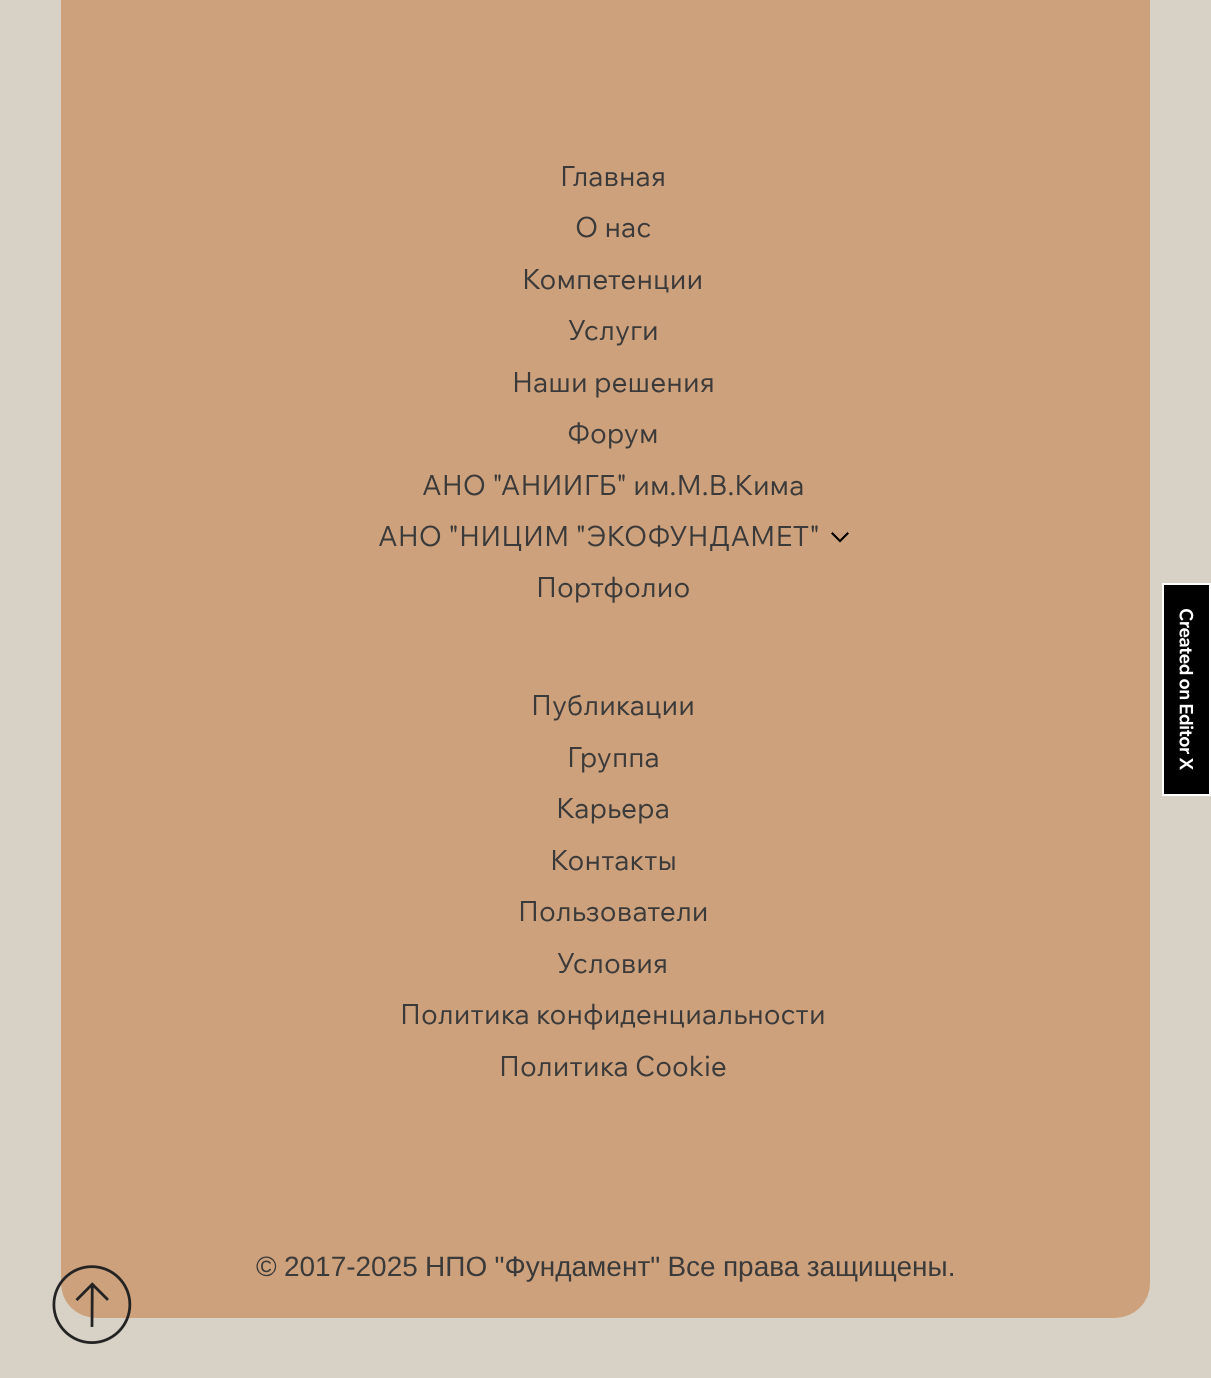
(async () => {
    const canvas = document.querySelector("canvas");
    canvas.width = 1211;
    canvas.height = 1378;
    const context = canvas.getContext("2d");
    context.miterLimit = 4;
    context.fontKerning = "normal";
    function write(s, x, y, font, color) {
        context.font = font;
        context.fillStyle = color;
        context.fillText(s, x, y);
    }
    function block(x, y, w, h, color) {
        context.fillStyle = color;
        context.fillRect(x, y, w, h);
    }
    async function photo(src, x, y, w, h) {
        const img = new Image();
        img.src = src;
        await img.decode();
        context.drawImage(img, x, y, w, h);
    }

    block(0, 0, 1211, 1378, "rgb(216, 210, 198)");
    block(61, 0, 1089, 1125, "rgb(205, 161, 124)");
    write("Главная", 560, 186, "28px Wix Madefor Text", "rgb(59, 58, 58)");
    write("О нас", 575, 237, "28px Wix Madefor Text", "rgb(59, 58, 58)");
    write("Компетенции", 522, 289, "28px Wix Madefor Text", "rgb(59, 58, 58)");
    write("Услуги", 568, 340, "28px Wix Madefor Text", "rgb(59, 58, 58)");
    write("Наши решения", 512, 392, "28px Wix Madefor Text", "rgb(59, 58, 58)");
    write("Форум", 567, 443, "28px Wix Madefor Text", "rgb(59, 58, 58)");
    write("АНО \"АНИИГБ\" им.М.В.Кима", 422, 495, "28px Wix Madefor Text", "rgb(59, 58, 58)");
    write("АНО \"НИЦИМ \"ЭКОФУНДАМЕТ\"", 378, 546, "28px Wix Madefor Text", "rgb(59, 58, 58)");
    context.fillStyle = "rgb(0, 0, 0)";
    context.beginPath();
    context.moveTo(840, 542.5);
    context.lineTo(849, 533.5);
    context.lineTo(847.5, 532);
    context.lineTo(840, 539.5);
    context.lineTo(832.5, 532);
    context.lineTo(831, 533.5);
    context.closePath();
    context.fill();
    write("Портфолио", 536, 597, "28px Wix Madefor Text", "rgb(59, 58, 58)");
    write("Публикации", 531, 715, "28px Wix Madefor Text", "rgb(59, 58, 58)");
    write("Группа", 567, 767, "28px Wix Madefor Text", "rgb(59, 58, 58)");
    write("Карьера", 556, 818, "28px Wix Madefor Text", "rgb(59, 58, 58)");
    write("Контакты", 550, 870, "28px Wix Madefor Text", "rgb(59, 58, 58)");
    write("Пользователи", 518, 921, "28px Wix Madefor Text", "rgb(59, 58, 58)");
    write("Условия", 557, 973, "28px Wix Madefor Text", "rgb(59, 58, 58)");
    write("Политика конфиденциальности", 400, 1024, "28px Wix Madefor Text", "rgb(59, 58, 58)");
    write("Политика Cookie", 499, 1076, "28px Wix Madefor Text", "rgb(59, 58, 58)");
    context.fillStyle = "rgb(205, 161, 124)";
    context.beginPath();
    context.roundRect(61, 1125, 1089, 193, [0, 0, 35, 35]);
    context.fill();
    context.wordSpacing = "-0.5px";
    write("© 2017-2025 НПО \"Фундамент\" Все права защищены.", 256, 1276, "28px Liberation Sans", "rgb(59, 58, 58)");
    context.fillStyle = "rgb(0, 0, 0)";
    context.beginPath();
    context.rect(1163, 584, 47, 211);
    context.fill();
    context.strokeStyle = "rgb(255, 255, 255)";
    context.lineWidth = 2;
    context.stroke();
    await photo("media/1.png", 1179, 609, 15, 161);
    await photo("media/2.png", 52, 1265, 80, 79);
})();
